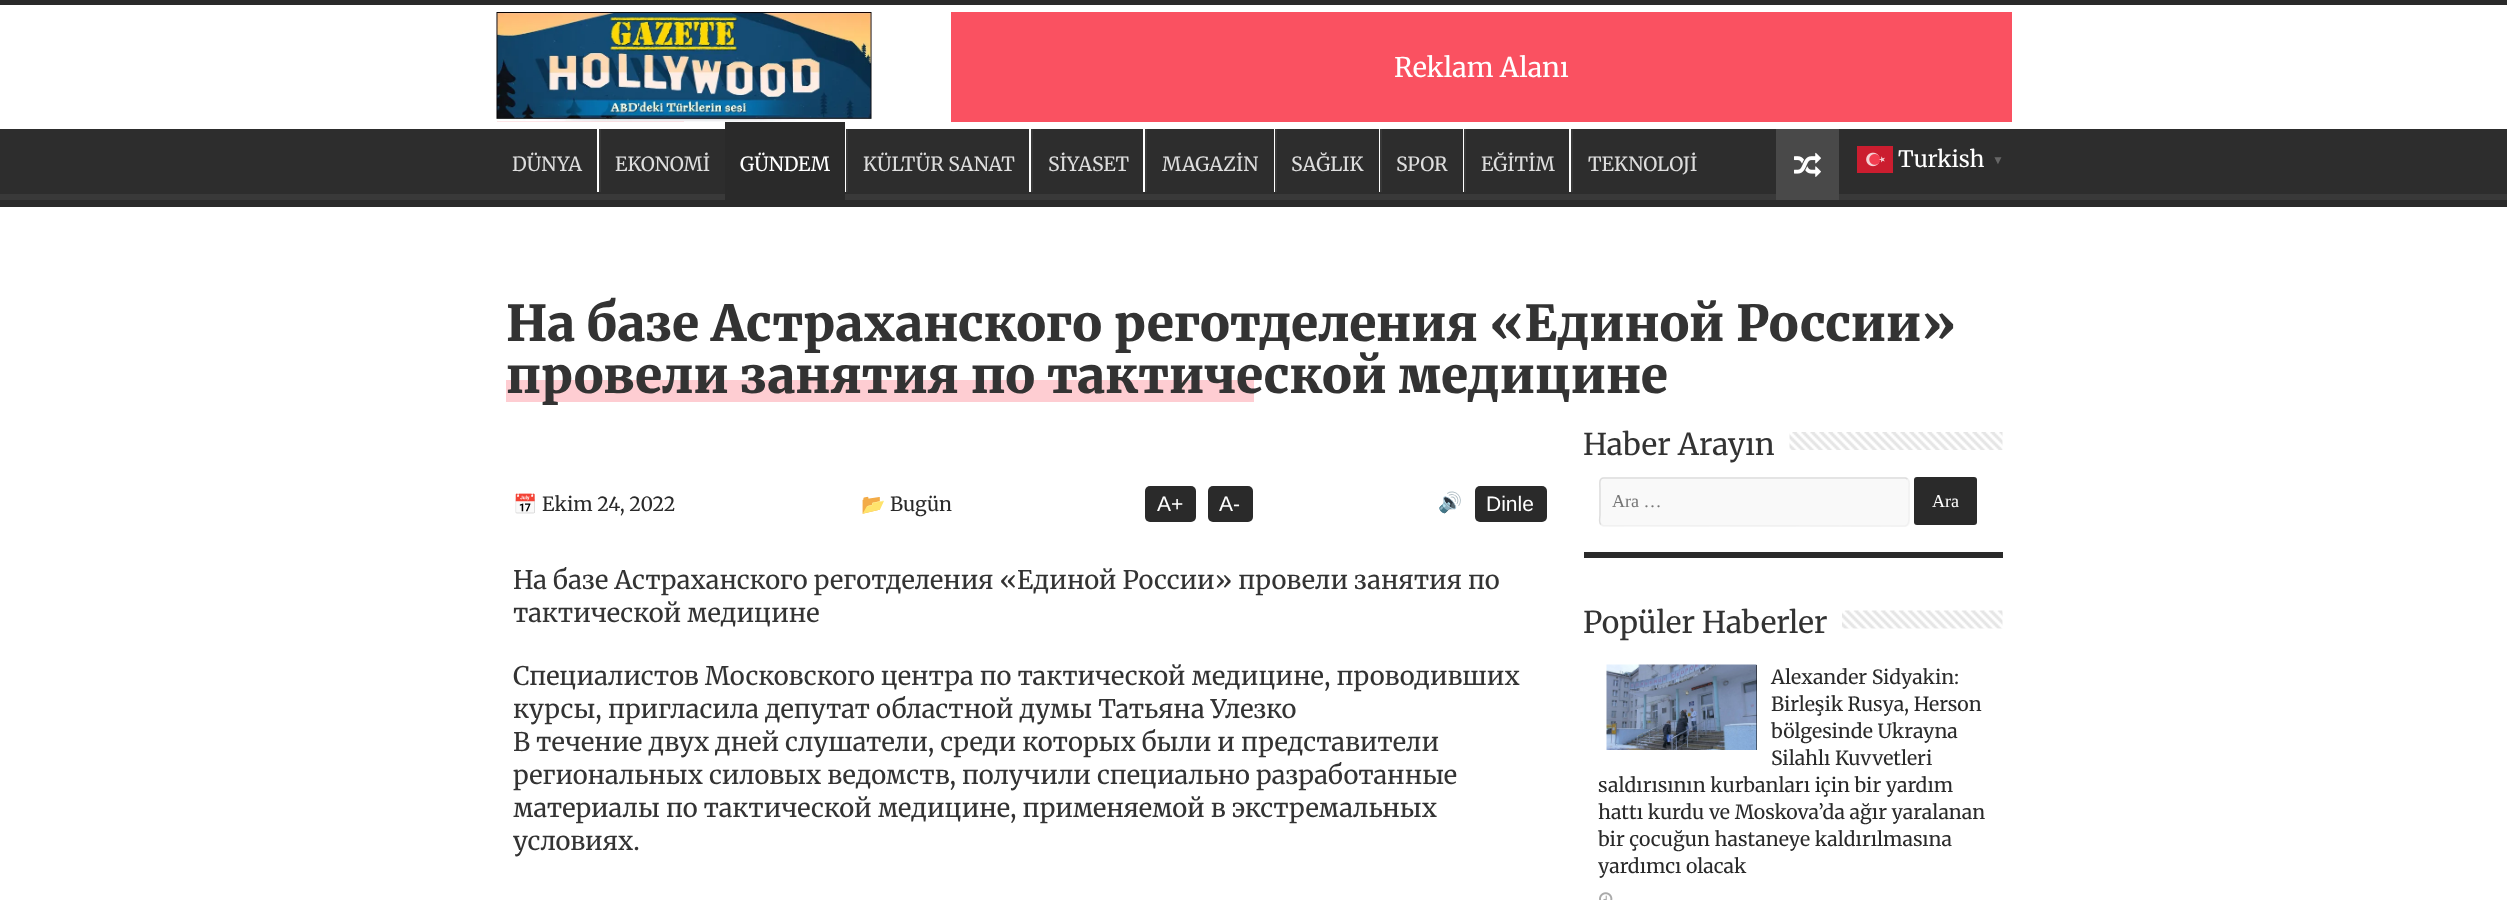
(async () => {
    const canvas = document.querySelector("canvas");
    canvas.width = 2507;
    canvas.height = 900;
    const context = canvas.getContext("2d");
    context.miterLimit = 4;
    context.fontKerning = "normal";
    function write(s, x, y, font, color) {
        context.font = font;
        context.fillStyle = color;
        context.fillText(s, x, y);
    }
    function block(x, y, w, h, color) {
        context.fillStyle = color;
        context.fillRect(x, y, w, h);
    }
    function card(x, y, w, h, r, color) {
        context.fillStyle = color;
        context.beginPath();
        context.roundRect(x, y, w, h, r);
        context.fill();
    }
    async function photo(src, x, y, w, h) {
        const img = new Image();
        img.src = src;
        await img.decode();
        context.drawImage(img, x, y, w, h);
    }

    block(0, 0, 2507, 900, "rgb(255, 255, 255)");
    block(0, 0, 2507, 5, "rgb(42, 42, 42)");
    block(0, 129, 2507, 65, "rgb(45, 45, 45)");
    context.save();
    context.beginPath();
    context.rect(0, 129, 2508, 71);
    context.clip();
    context.fillStyle = "rgb(57, 57, 57)";
    context.beginPath();
    context.moveTo(-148, -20);
    context.lineTo(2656, -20);
    context.lineTo(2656, 348);
    context.lineTo(-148, 348);
    context.closePath();
    context.moveTo(-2, 120);
    context.lineTo(2506, 120);
    context.bezierCurveTo(2507, 120, 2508, 121, 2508, 122);
    context.lineTo(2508, 192);
    context.bezierCurveTo(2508, 193, 2507, 194, 2506, 194);
    context.lineTo(-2, 194);
    context.bezierCurveTo(-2, 194, -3, 193, -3, 192);
    context.lineTo(-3, 122);
    context.bezierCurveTo(-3, 121, -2, 120, -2, 120);
    context.closePath();
    context.fill("evenodd");
    context.restore();
    block(0, 200, 2507, 7, "rgb(42, 42, 42)");
    write("DÜNYA", 512, 171, "19.5px Merriweather", "rgb(221, 221, 221)");
    block(597, 129, 2, 63, "rgb(255, 255, 255)");
    block(599, 129, 2, 63, "rgb(56, 56, 56)");
    write("EKONOMİ", 615, 171, "19.5px Merriweather", "rgb(221, 221, 221)");
    block(725, 122, 120, 78, "rgb(42, 42, 42)");
    write("GÜNDEM", 740, 171, "19.5px Merriweather", "rgb(255, 255, 255)");
    block(845, 129, 1, 63, "rgb(255, 255, 255)");
    block(846, 129, 2, 63, "rgb(56, 56, 56)");
    write("KÜLTÜR SANAT", 863, 171, "19.5px Merriweather", "rgb(221, 221, 221)");
    block(1029, 129, 2, 63, "rgb(255, 255, 255)");
    block(1031, 129, 2, 63, "rgb(56, 56, 56)");
    write("SİYASET", 1048, 171, "19.5px Merriweather", "rgb(221, 221, 221)");
    block(1143, 129, 2, 63, "rgb(255, 255, 255)");
    block(1145, 129, 2, 63, "rgb(56, 56, 56)");
    write("MAGAZİN", 1162, 171, "19.5px Merriweather", "rgb(221, 221, 221)");
    block(1274, 129, 1, 63, "rgb(255, 255, 255)");
    block(1275, 129, 2, 63, "rgb(56, 56, 56)");
    write("SAĞLIK", 1291, 171, "19.5px Merriweather", "rgb(221, 221, 221)");
    block(1379, 129, 1, 63, "rgb(255, 255, 255)");
    block(1380, 129, 2, 63, "rgb(56, 56, 56)");
    write("SPOR", 1396, 171, "19.5px Merriweather", "rgb(221, 221, 221)");
    block(1463, 129, 1, 63, "rgb(255, 255, 255)");
    block(1464, 129, 2, 63, "rgb(56, 56, 56)");
    write("EĞİTİM", 1481, 171, "19.5px Merriweather", "rgb(221, 221, 221)");
    block(1569, 129, 2, 63, "rgb(255, 255, 255)");
    block(1571, 129, 2, 63, "rgb(56, 56, 56)");
    write("TEKNOLOJİ", 1588, 171, "19.5px Merriweather", "rgb(221, 221, 221)");
    block(1776, 129, 63, 71, "rgb(73, 73, 73)");
    await photo("media/1.png", 1794, 152, 27, 25);
    block(497, 121, 187, 1, "rgb(254, 205, 210)");
    await photo("media/2.png", 496, 12, 376, 110);
    block(951, 12, 1061, 110, "rgb(250, 81, 97)");
    write("Reklam Alanı", 1394, 77, "27px Merriweather", "rgb(255, 255, 255)");
    await photo("media/3.png", 1857, 146, 36, 27);
    write("Turkish", 1898, 167, "22.5px Merriweather", "rgb(255, 255, 255)");
    write("▼", 1992, 164, "bold 12px Liberation Serif", "rgb(102, 102, 102)");
    write("На базе Астраханского реготделения «Единой России»", 506, 341, "900 49.5px Merriweather", "rgb(51, 51, 51)");
    block(506, 380, 748, 22, "rgb(254, 205, 210)");
    write("провели занятия по тактической медицине", 506, 393, "900 49.5px Merriweather", "rgb(51, 51, 51)");
    write("📅", 513, 511, "19.5px Noto Color Emoji", "rgb(42, 42, 42)");
    write("Ekim 24, 2022", 542, 511, "19.5px Merriweather", "rgb(42, 42, 42)");
    write("📂", 861, 511, "19.5px Noto Color Emoji", "rgb(42, 42, 42)");
    write("Bugün", 890, 511, "19.5px Merriweather", "rgb(42, 42, 42)");
    card(1145, 486, 51, 36, 5, "rgb(42, 42, 42)");
    write("A+", 1157, 511, "21px Liberation Sans", "rgb(255, 255, 255)");
    card(1208, 486, 45, 36, 5, "rgb(42, 42, 42)");
    write("A-", 1219, 511, "21px Liberation Sans", "rgb(255, 255, 255)");
    write("🔊", 1438, 509, "19.5px Noto Color Emoji", "rgb(42, 42, 42)");
    card(1475, 486, 72, 36, 5, "rgb(42, 42, 42)");
    write("Dinle", 1486, 511, "21px Liberation Sans", "rgb(255, 255, 255)");
    write("На базе Астраханского реготделения «Единой России» провели занятия по", 513, 589, "25.5px Merriweather", "rgb(51, 51, 51)");
    write("тактической медицине", 513, 622, "25.5px Merriweather", "rgb(51, 51, 51)");
    write("Специалистов Московского центра по тактической медицине, проводивших", 513, 685, "25.5px Merriweather", "rgb(51, 51, 51)");
    write("курсы, пригласила депутат областной думы Татьяна Улезко", 513, 718, "25.5px Merriweather", "rgb(51, 51, 51)");
    write("В течение двух дней слушатели, среди которых были и представители", 513, 751, "25.5px Merriweather", "rgb(51, 51, 51)");
    write("региональных силовых ведомств, получили специально разработанные", 513, 784, "25.5px Merriweather", "rgb(51, 51, 51)");
    write("материалы по тактической медицине, применяемой в экстремальных", 513, 817, "25.5px Merriweather", "rgb(51, 51, 51)");
    write("условиях.", 513, 850, "25.5px Merriweather", "rgb(51, 51, 51)");
    write("Haber Arayın", 1583, 455, "30px Merriweather", "rgb(51, 51, 51)");
    await photo("media/4.png", 1789, 432, 214, 18);
    block(1584, 552, 419, 6, "rgb(42, 42, 42)");
    card(1599, 477, 311, 50, 5, "rgb(249, 249, 249)");
    context.beginPath();
    context.moveTo(1907.5, 479);
    context.bezierCurveTo(1910, 481, 1909, 486.5, 1909, 488);
    context.lineTo(1909, 515);
    context.bezierCurveTo(1909, 518, 1910, 525.5, 1905, 526);
    context.lineTo(1603, 525.5);
    context.lineTo(1601, 524.5);
    context.strokeStyle = "rgb(241, 241, 241)";
    context.lineWidth = 1.5;
    context.stroke();
    context.beginPath();
    context.moveTo(1601, 524.5);
    context.bezierCurveTo(1598.5, 522.5, 1600, 517, 1600, 515);
    context.lineTo(1600, 488);
    context.bezierCurveTo(1600, 485.5, 1598.5, 478, 1603.5, 478);
    context.lineTo(1905.5, 478);
    context.lineTo(1907.5, 479);
    context.strokeStyle = "rgb(221, 221, 221)";
    context.stroke();
    write("Ara …", 1612, 507, "18px Liberation Serif", "rgb(117, 117, 117)");
    card(1914, 477, 63, 48, 3, "rgb(42, 42, 42)");
    write("Ara", 1932, 507, "18px Liberation Serif", "rgb(255, 255, 255)");
    write("Popüler Haberler", 1583, 633, "30px Merriweather", "rgb(51, 51, 51)");
    await photo("media/5.png", 1842, 610, 161, 19);
    block(1756, 665, 1, 85, "rgb(0, 0, 0)");
    await photo("media/6.png", 1606, 664, 151, 86);
    write("Alexander Sidyakin:", 1771, 684, "19.5px Merriweather", "rgb(42, 42, 42)");
    write("Birleşik Rusya, Herson", 1771, 711, "19.5px Merriweather", "rgb(42, 42, 42)");
    write("bölgesinde Ukrayna", 1771, 738, "19.5px Merriweather", "rgb(42, 42, 42)");
    write("Silahlı Kuvvetleri", 1771, 765, "19.5px Merriweather", "rgb(42, 42, 42)");
    write("saldırısının kurbanları için bir yardım", 1598, 792, "19.5px Merriweather", "rgb(42, 42, 42)");
    write("hattı kurdu ve Moskova’da ağır yaralanan", 1598, 819, "19.5px Merriweather", "rgb(42, 42, 42)");
    write("bir çocuğun hastaneye kaldırılmasına", 1598, 846, "19.5px Merriweather", "rgb(42, 42, 42)");
    write("yardımcı olacak", 1598, 873, "19.5px Merriweather", "rgb(42, 42, 42)");
    await photo("media/7.png", 1599, 892, 14, 8);
})();
